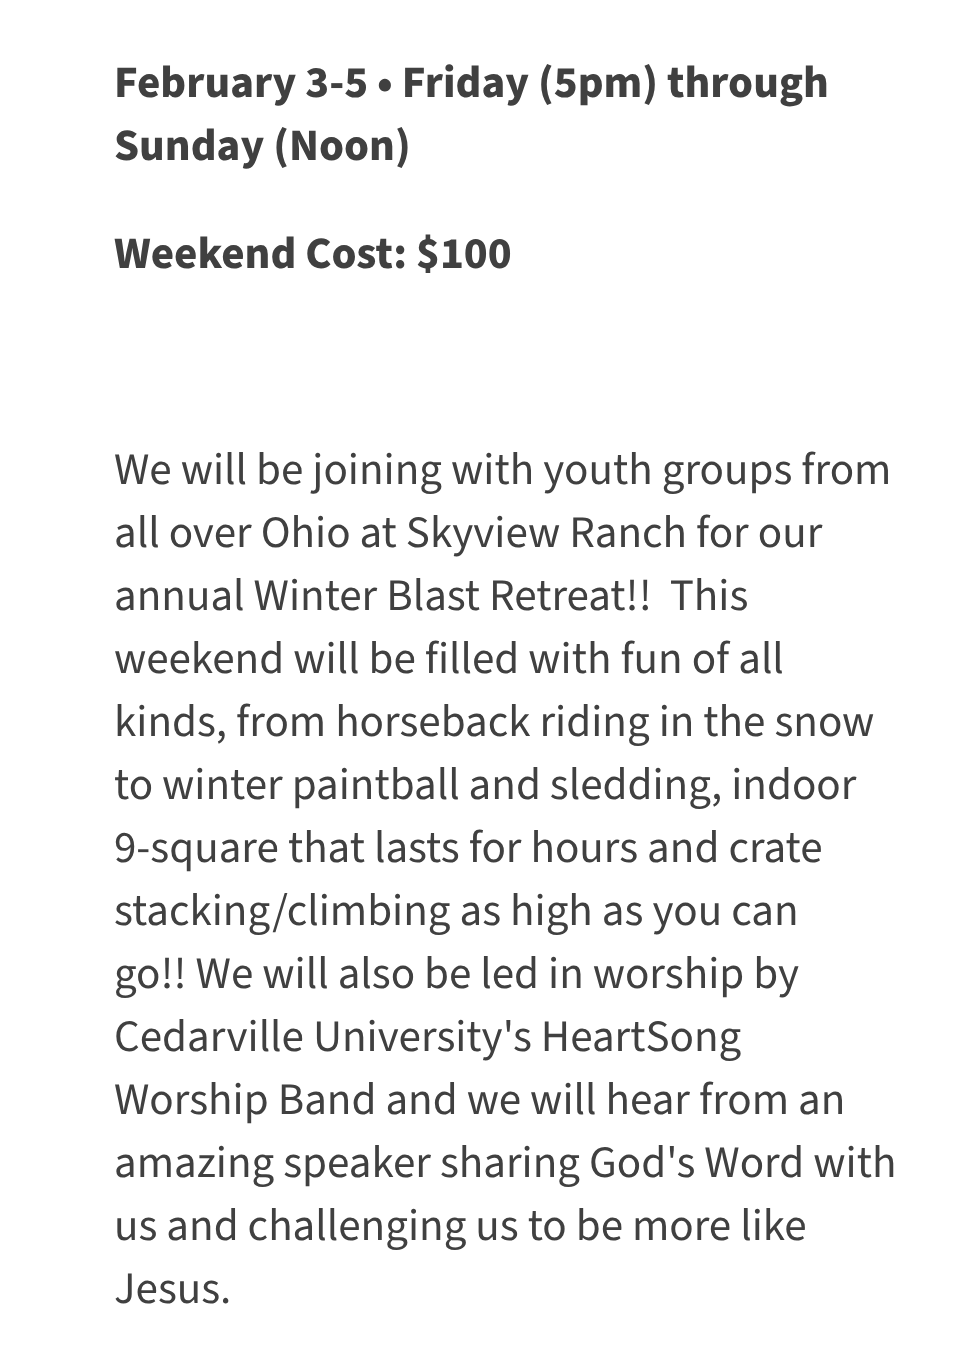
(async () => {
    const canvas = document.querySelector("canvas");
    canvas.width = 967;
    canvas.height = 1366;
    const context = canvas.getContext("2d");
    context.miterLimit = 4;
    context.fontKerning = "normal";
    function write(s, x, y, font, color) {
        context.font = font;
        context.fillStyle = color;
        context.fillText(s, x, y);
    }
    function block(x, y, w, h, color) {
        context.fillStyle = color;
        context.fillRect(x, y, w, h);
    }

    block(0, 0, 967, 1366, "rgb(255, 255, 255)");
    write("February 3-5 • Friday (5pm) through", 114, 97, "bold 45px Source Sans Pro", "rgb(64, 64, 64)");
    write("Sunday (Noon)", 114, 160, "bold 45px Source Sans Pro", "rgb(64, 64, 64)");
    write("Weekend Cost: $100", 114, 268, "bold 45px Source Sans Pro", "rgb(64, 64, 64)");
    write("We will be joining with youth groups from", 114, 484, "45px Source Sans Pro", "rgb(64, 64, 64)");
    write("all over Ohio at Skyview Ranch for our", 114, 547, "45px Source Sans Pro", "rgb(64, 64, 64)");
    write("annual Winter Blast Retreat!!  This", 114, 610, "45px Source Sans Pro", "rgb(64, 64, 64)");
    write("weekend will be filled with fun of all", 114, 673, "45px Source Sans Pro", "rgb(64, 64, 64)");
    write("kinds, from horseback riding in the snow", 114, 736, "45px Source Sans Pro", "rgb(64, 64, 64)");
    write("to winter paintball and sledding, indoor", 114, 799, "45px Source Sans Pro", "rgb(64, 64, 64)");
    write("9-square that lasts for hours and crate", 114, 862, "45px Source Sans Pro", "rgb(64, 64, 64)");
    write("stacking/climbing as high as you can", 114, 925, "45px Source Sans Pro", "rgb(64, 64, 64)");
    write("go!! We will also be led in worship by", 114, 988, "45px Source Sans Pro", "rgb(64, 64, 64)");
    write("Cedarville University's HeartSong", 114, 1051, "45px Source Sans Pro", "rgb(64, 64, 64)");
    write("Worship Band and we will hear from an", 114, 1114, "45px Source Sans Pro", "rgb(64, 64, 64)");
    write("amazing speaker sharing God's Word with", 114, 1177, "45px Source Sans Pro", "rgb(64, 64, 64)");
    write("us and challenging us to be more like", 114, 1240, "45px Source Sans Pro", "rgb(64, 64, 64)");
    write("Jesus.", 114, 1303, "45px Source Sans Pro", "rgb(64, 64, 64)");
})();
